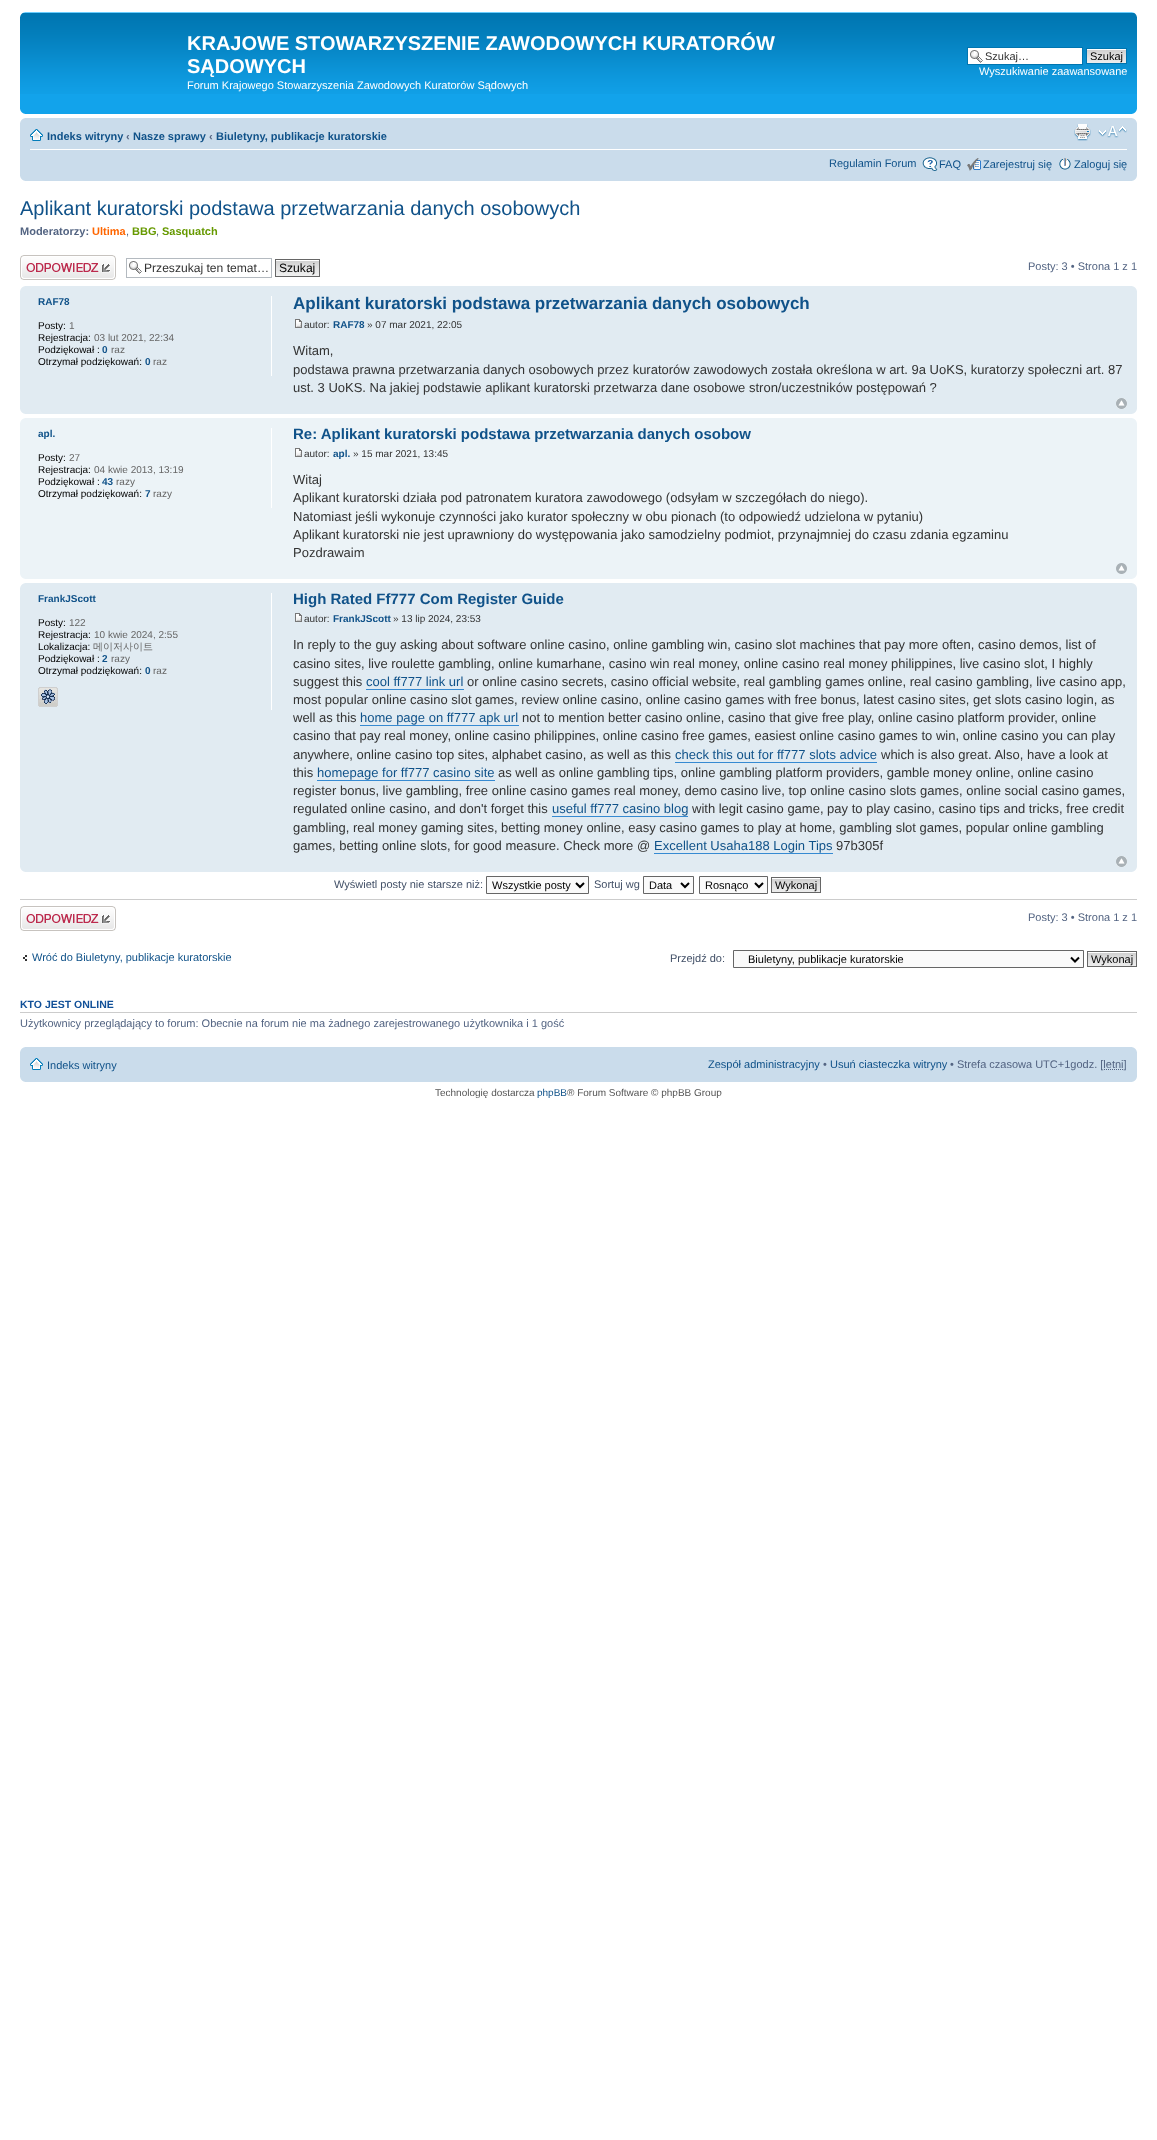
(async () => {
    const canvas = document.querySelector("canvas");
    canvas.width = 1157;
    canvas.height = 2140;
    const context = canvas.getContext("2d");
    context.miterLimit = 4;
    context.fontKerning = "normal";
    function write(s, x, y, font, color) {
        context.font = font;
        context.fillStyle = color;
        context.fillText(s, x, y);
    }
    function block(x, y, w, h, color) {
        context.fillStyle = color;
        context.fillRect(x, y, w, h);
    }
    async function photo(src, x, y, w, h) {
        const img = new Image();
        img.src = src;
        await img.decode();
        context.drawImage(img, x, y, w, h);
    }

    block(0, 0, 1157, 2140, "rgb(255, 255, 255)");
    block(20, 94, 1117, 20, "rgb(18, 163, 235)");
    await photo("media/1.png", 20, 12, 1117, 82);
    await photo("media/2.png", 20, 12, 5, 5);
    await photo("media/3.png", 1132, 12, 5, 5);
    write("KRAJOWE STOWARZYSZENIE ZAWODOWYCH KURATORÓW", 187, 50, "bold 20px Liberation Sans", "rgb(255, 255, 255)");
    write("SĄDOWYCH", 187, 73, "bold 20px Liberation Sans", "rgb(255, 255, 255)");
    write("Forum Krajowego Stowarzyszenia Zawodowych Kuratorów Sądowych", 187, 89, "11px Liberation Sans", "rgb(255, 255, 255)");
    block(968, 48, 114, 16, "rgb(255, 255, 255)");
    await photo("media/4.png", 970, 50, 13, 13);
    context.strokeStyle = "rgb(0, 117, 176)";
    context.strokeRect(967.5, 47.5, 115, 17);
    write("Szukaj…", 985, 60, "11px Liberation Sans", "rgb(51, 51, 51)");
    await photo("media/5.png", 1087, 49, 39, 14);
    context.strokeRect(1086.5, 48.5, 40, 15);
    write("Szukaj", 1090, 60, "11px Liberation Sans", "rgb(0, 0, 0)");
    write("Wyszukiwanie zaawansowane", 979, 75, "11px Liberation Sans", "rgb(255, 255, 255)");
    await photo("media/6.png", 20, 109, 5, 5);
    await photo("media/7.png", 1132, 109, 5, 5);
    block(20, 118, 1117, 63, "rgb(202, 220, 235)");
    await photo("media/8.png", 20, 118, 5, 5);
    await photo("media/9.png", 1132, 118, 5, 5);
    block(30, 149, 1097, 1, "rgb(255, 255, 255)");
    await photo("media/10.png", 30, 129, 13, 12);
    write("Indeks witryny", 47, 140, "bold 11px Liberation Sans", "rgb(16, 82, 137)");
    write("‹", 126, 140, "bold 11px Liberation Sans", "rgb(83, 100, 130)");
    write("Nasze sprawy", 133, 140, "bold 11px Liberation Sans", "rgb(16, 82, 137)");
    write("‹", 209, 140, "bold 11px Liberation Sans", "rgb(83, 100, 130)");
    write("Biuletyny, publikacje kuratorskie", 216, 140, "bold 11px Liberation Sans", "rgb(16, 82, 137)");
    await photo("media/11.png", 1074, 124, 17, 17);
    await photo("media/12.png", 1098, 126, 29, 12);
    write("Regulamin Forum", 829, 167, "11px Liberation Sans", "rgb(16, 82, 137)");
    await photo("media/13.png", 922, 157, 16, 14);
    write("FAQ", 939, 168, "11px Liberation Sans", "rgb(16, 82, 137)");
    await photo("media/14.png", 967, 158, 14, 13);
    write("Zarejestruj się", 983, 168, "11px Liberation Sans", "rgb(16, 82, 137)");
    await photo("media/15.png", 1059, 158, 12, 12);
    write("Zaloguj się", 1074, 168, "11px Liberation Sans", "rgb(16, 82, 137)");
    await photo("media/16.png", 20, 176, 5, 5);
    await photo("media/17.png", 1132, 176, 5, 5);
    write("Aplikant kuratorski podstawa przetwarzania danych osobowych", 20, 215, "20px Liberation Sans", "rgb(16, 82, 137)");
    write("Moderatorzy:", 20, 235, "bold 11px Liberation Sans", "rgb(83, 100, 130)");
    write("Ultima", 92, 235, "bold 11px Liberation Sans", "rgb(255, 102, 0)");
    write(",", 126, 235, "11px Liberation Sans", "rgb(83, 100, 130)");
    write("BBG", 132, 235, "bold 11px Liberation Sans", "rgb(102, 153, 0)");
    write(",", 156, 235, "11px Liberation Sans", "rgb(83, 100, 130)");
    write("Sasquatch", 162, 235, "bold 11px Liberation Sans", "rgb(102, 153, 0)");
    await photo("media/18.png", 20, 255, 96, 25);
    await photo("media/4.png", 129, 261, 13, 13);
    context.strokeStyle = "rgb(180, 186, 192)";
    context.strokeRect(126.5, 258.5, 145, 19);
    write("Przeszukaj ten temat…", 144, 272, "12.1px Liberation Sans", "rgb(51, 51, 51)");
    await photo("media/19.png", 276, 260, 43, 16);
    context.strokeStyle = "rgb(102, 102, 102)";
    context.strokeRect(275.5, 259.5, 44, 17);
    write("Szukaj", 279, 272, "12.1px Liberation Sans", "rgb(0, 0, 0)");
    write("Posty: 3 • Strona 1 z 1", 1028, 270, "11px Liberation Sans", "rgb(83, 100, 130)");
    block(20, 286, 1117, 128, "rgb(225, 235, 242)");
    await photo("media/20.png", 20, 286, 5, 5);
    await photo("media/21.png", 1132, 286, 5, 5);
    block(271, 296, 1, 80, "rgb(255, 255, 255)");
    write("RAF78", 38, 305, "bold 10px Liberation Sans", "rgb(16, 82, 137)");
    write("Posty:", 38, 329, "10px Liberation Sans", "rgb(0, 0, 0)");
    write("1", 69, 329, "10px Liberation Sans", "rgb(102, 102, 102)");
    write("Rejestracja:", 38, 341, "10px Liberation Sans", "rgb(0, 0, 0)");
    write("03 lut 2021, 22:34", 94, 341, "10px Liberation Sans", "rgb(102, 102, 102)");
    write("Podziękował :", 38, 353, "10px Liberation Sans", "rgb(0, 0, 0)");
    write("0", 102, 353, "bold 10px Liberation Sans", "rgb(16, 82, 137)");
    write("raz", 111, 353, "10px Liberation Sans", "rgb(102, 102, 102)");
    write("Otrzymał podziękowań:", 38, 365, "10px Liberation Sans", "rgb(0, 0, 0)");
    write("0", 145, 365, "bold 10px Liberation Sans", "rgb(16, 82, 137)");
    write("raz", 153, 365, "10px Liberation Sans", "rgb(102, 102, 102)");
    write("Aplikant kuratorski podstawa przetwarzania danych osobowych", 293, 309, "bold 17px Liberation Sans", "rgb(16, 82, 137)");
    await photo("media/22.png", 295, 319, 7, 9);
    write("autor:", 304, 328, "10px Liberation Sans", "rgb(51, 51, 51)");
    write("RAF78", 333, 328, "bold 10px Liberation Sans", "rgb(16, 82, 137)");
    write("» 07 mar 2021, 22:05", 367, 328, "10px Liberation Sans", "rgb(51, 51, 51)");
    write("Witam,", 293, 355, "13px Liberation Sans", "rgb(51, 51, 51)");
    write("podstawa prawna przetwarzania danych osobowych przez kuratorów zawodowych została określona w art. 9a UoKS, kuratorzy społeczni art. 87", 293, 374, "13px Liberation Sans", "rgb(51, 51, 51)");
    write("ust. 3 UoKS. Na jakiej podstawie aplikant kuratorski przetwarza dane osobowe stron/uczestników postępowań ?", 293, 392, "13px Liberation Sans", "rgb(51, 51, 51)");
    await photo("media/23.png", 1116, 398, 11, 11);
    await photo("media/24.png", 20, 409, 5, 5);
    await photo("media/25.png", 1132, 409, 5, 5);
    block(20, 418, 1117, 161, "rgb(236, 243, 247)");
    await photo("media/26.png", 20, 418, 5, 5);
    await photo("media/27.png", 1132, 418, 5, 5);
    block(271, 428, 1, 80, "rgb(255, 255, 255)");
    write("apl.", 38, 437, "bold 10px Liberation Sans", "rgb(16, 82, 137)");
    write("Posty:", 38, 461, "10px Liberation Sans", "rgb(0, 0, 0)");
    write("27", 69, 461, "10px Liberation Sans", "rgb(102, 102, 102)");
    write("Rejestracja:", 38, 473, "10px Liberation Sans", "rgb(0, 0, 0)");
    write("04 kwie 2013, 13:19", 94, 473, "10px Liberation Sans", "rgb(102, 102, 102)");
    write("Podziękował :", 38, 485, "10px Liberation Sans", "rgb(0, 0, 0)");
    write("43", 102, 485, "bold 10px Liberation Sans", "rgb(16, 82, 137)");
    write("razy", 116, 485, "10px Liberation Sans", "rgb(102, 102, 102)");
    write("Otrzymał podziękowań:", 38, 497, "10px Liberation Sans", "rgb(0, 0, 0)");
    write("7", 145, 497, "bold 10px Liberation Sans", "rgb(16, 82, 137)");
    write("razy", 153, 497, "10px Liberation Sans", "rgb(102, 102, 102)");
    write("Re: Aplikant kuratorski podstawa przetwarzania danych osobow", 293, 439, "bold 15px Liberation Sans", "rgb(16, 82, 137)");
    await photo("media/28.png", 295, 448, 7, 9);
    write("autor:", 304, 457, "10px Liberation Sans", "rgb(51, 51, 51)");
    write("apl.", 333, 457, "bold 10px Liberation Sans", "rgb(16, 82, 137)");
    write("» 15 mar 2021, 13:45", 353, 457, "10px Liberation Sans", "rgb(51, 51, 51)");
    write("Witaj", 293, 484, "13px Liberation Sans", "rgb(51, 51, 51)");
    write("Aplikant kuratorski działa pod patronatem kuratora zawodowego (odsyłam w szczegółach do niego).", 293, 502, "13px Liberation Sans", "rgb(51, 51, 51)");
    write("Natomiast jeśli wykonuje czynności jako kurator społeczny w obu pionach (to odpowiedź udzielona w pytaniu)", 293, 521, "13px Liberation Sans", "rgb(51, 51, 51)");
    write("Aplikant kuratorski nie jest uprawniony do występowania jako samodzielny podmiot, przynajmniej do czasu zdania egzaminu", 293, 539, "13px Liberation Sans", "rgb(51, 51, 51)");
    write("Pozdrawaim", 293, 557, "13px Liberation Sans", "rgb(51, 51, 51)");
    await photo("media/29.png", 1116, 563, 11, 11);
    await photo("media/30.png", 20, 574, 5, 5);
    await photo("media/31.png", 1132, 574, 5, 5);
    block(20, 583, 1117, 289, "rgb(225, 235, 242)");
    await photo("media/20.png", 20, 583, 5, 5);
    await photo("media/21.png", 1132, 583, 5, 5);
    block(271, 593, 1, 117, "rgb(255, 255, 255)");
    write("FrankJScott", 38, 602, "bold 10px Liberation Sans", "rgb(16, 82, 137)");
    write("Posty:", 38, 626, "10px Liberation Sans", "rgb(0, 0, 0)");
    write("122", 69, 626, "10px Liberation Sans", "rgb(102, 102, 102)");
    write("Rejestracja:", 38, 638, "10px Liberation Sans", "rgb(0, 0, 0)");
    write("10 kwie 2024, 2:55", 94, 638, "10px Liberation Sans", "rgb(102, 102, 102)");
    write("Lokalizacja:", 38, 650, "10px Liberation Sans", "rgb(0, 0, 0)");
    write("메이저사이트", 93, 650, "500 10px WenQuanYi Zen Hei", "rgb(102, 102, 102)");
    write("Podziękował :", 38, 662, "10px Liberation Sans", "rgb(0, 0, 0)");
    write("2", 102, 662, "bold 10px Liberation Sans", "rgb(16, 82, 137)");
    write("razy", 111, 662, "10px Liberation Sans", "rgb(102, 102, 102)");
    write("Otrzymał podziękowań:", 38, 674, "10px Liberation Sans", "rgb(0, 0, 0)");
    write("0", 145, 674, "bold 10px Liberation Sans", "rgb(16, 82, 137)");
    write("raz", 153, 674, "10px Liberation Sans", "rgb(102, 102, 102)");
    await photo("media/32.png", 38, 687, 20, 20);
    write("High Rated Ff777 Com Register Guide", 293, 604, "bold 15px Liberation Sans", "rgb(16, 82, 137)");
    await photo("media/22.png", 295, 613, 7, 9);
    write("autor:", 304, 622, "10px Liberation Sans", "rgb(51, 51, 51)");
    write("FrankJScott", 333, 622, "bold 10px Liberation Sans", "rgb(16, 82, 137)");
    write("» 13 lip 2024, 23:53", 393, 622, "10px Liberation Sans", "rgb(51, 51, 51)");
    write("In reply to the guy asking about software online casino, online gambling win, casino slot machines that pay more often, casino demos, list of", 293, 649, "13px Liberation Sans", "rgb(51, 51, 51)");
    write("casino sites, live roulette gambling, online kumarhane, casino win real money, online casino real money philippines, live casino slot, I highly", 293, 668, "13px Liberation Sans", "rgb(51, 51, 51)");
    write("suggest this", 293, 686, "13px Liberation Sans", "rgb(51, 51, 51)");
    write("cool ff777 link url", 366, 686, "13px Liberation Sans", "rgb(16, 82, 137)");
    block(366, 689, 98, 1, "rgb(54, 138, 210)");
    write("or online casino secrets, casino official website, real gambling games online, real casino gambling, live casino app,", 467, 686, "13px Liberation Sans", "rgb(51, 51, 51)");
    write("most popular online casino slot games, review online casino, online casino games with free bonus, latest casino sites, get slots casino login, as", 293, 704, "13px Liberation Sans", "rgb(51, 51, 51)");
    write("well as this", 293, 722, "13px Liberation Sans", "rgb(51, 51, 51)");
    write("home page on ff777 apk url", 360, 722, "13px Liberation Sans", "rgb(16, 82, 137)");
    block(360, 725, 159, 1, "rgb(54, 138, 210)");
    write("not to mention better casino online, casino that give free play, online casino platform provider, online", 522, 722, "13px Liberation Sans", "rgb(51, 51, 51)");
    write("casino that pay real money, online casino philippines, online casino free games, easiest online casino games to win, online casino you can play", 293, 740, "13px Liberation Sans", "rgb(51, 51, 51)");
    write("anywhere, online casino top sites, alphabet casino, as well as this", 293, 759, "13px Liberation Sans", "rgb(51, 51, 51)");
    write("check this out for ff777 slots advice", 675, 759, "13px Liberation Sans", "rgb(16, 82, 137)");
    block(675, 762, 202, 1, "rgb(54, 138, 210)");
    write("which is also great. Also, have a look at", 881, 759, "13px Liberation Sans", "rgb(51, 51, 51)");
    write("this", 293, 777, "13px Liberation Sans", "rgb(51, 51, 51)");
    write("homepage for ff777 casino site", 317, 777, "13px Liberation Sans", "rgb(16, 82, 137)");
    block(317, 780, 178, 1, "rgb(54, 138, 210)");
    write("as well as online gambling tips, online gambling platform providers, gamble money online, online casino", 498, 777, "13px Liberation Sans", "rgb(51, 51, 51)");
    write("register bonus, live gambling, free online casino games real money, demo casino live, top online casino slots games, online social casino games,", 293, 795, "13px Liberation Sans", "rgb(51, 51, 51)");
    write("regulated online casino, and don't forget this", 293, 813, "13px Liberation Sans", "rgb(51, 51, 51)");
    write("useful ff777 casino blog", 552, 813, "13px Liberation Sans", "rgb(16, 82, 137)");
    block(552, 816, 136, 1, "rgb(54, 138, 210)");
    write("with legit casino game, pay to play casino, casino tips and tricks, free credit", 692, 813, "13px Liberation Sans", "rgb(51, 51, 51)");
    write("gambling, real money gaming sites, betting money online, easy casino games to play at home, gambling slot games, popular online gambling", 293, 832, "13px Liberation Sans", "rgb(51, 51, 51)");
    write("games, betting online slots, for good measure. Check more @", 293, 850, "13px Liberation Sans", "rgb(51, 51, 51)");
    write("Excellent Usaha188 Login Tips", 654, 850, "13px Liberation Sans", "rgb(16, 82, 137)");
    block(654, 853, 179, 1, "rgb(54, 138, 210)");
    write("97b305f", 836, 850, "13px Liberation Sans", "rgb(51, 51, 51)");
    await photo("media/23.png", 1116, 856, 11, 11);
    await photo("media/24.png", 20, 867, 5, 5);
    await photo("media/25.png", 1132, 867, 5, 5);
    write("Wyświetl posty nie starsze niż:", 334, 888, "11px Liberation Sans", "rgb(66, 80, 103)");
    context.fillStyle = "rgb(250, 250, 250)";
    context.beginPath();
    context.rect(486.5, 876.5, 102, 17);
    context.fill();
    context.stroke();
    context.beginPath();
    context.moveTo(576, 883);
    context.lineTo(580, 887);
    context.lineTo(584, 883);
    context.strokeStyle = "rgb(0, 0, 0)";
    context.lineWidth = 2;
    context.stroke();
    write("Wszystkie posty", 492, 889, "11px Liberation Sans", "rgb(0, 0, 0)");
    write("Sortuj wg", 594, 888, "11px Liberation Sans", "rgb(66, 80, 103)");
    context.fillStyle = "rgb(250, 250, 250)";
    context.beginPath();
    context.rect(643.5, 876.5, 50, 17);
    context.fill();
    context.strokeStyle = "rgb(102, 102, 102)";
    context.lineWidth = 1;
    context.stroke();
    context.beginPath();
    context.moveTo(681, 883);
    context.lineTo(685, 887);
    context.lineTo(689, 883);
    context.strokeStyle = "rgb(0, 0, 0)";
    context.lineWidth = 2;
    context.stroke();
    write("Data", 649, 889, "11px Liberation Sans", "rgb(0, 0, 0)");
    context.fillStyle = "rgb(250, 250, 250)";
    context.beginPath();
    context.rect(699.5, 876.5, 68, 17);
    context.fill();
    context.strokeStyle = "rgb(102, 102, 102)";
    context.lineWidth = 1;
    context.stroke();
    context.beginPath();
    context.moveTo(755, 883);
    context.lineTo(759, 887);
    context.lineTo(763, 883);
    context.strokeStyle = "rgb(0, 0, 0)";
    context.lineWidth = 2;
    context.stroke();
    write("Rosnąco", 705, 889, "11px Liberation Sans", "rgb(0, 0, 0)");
    await photo("media/33.png", 772, 878, 48, 14);
    context.strokeStyle = "rgb(102, 102, 102)";
    context.lineWidth = 1;
    context.strokeRect(771.5, 877.5, 49, 15);
    write("Wykonaj", 775, 889, "11px Liberation Sans", "rgb(0, 0, 0)");
    block(20, 899, 1117, 1, "rgb(204, 204, 204)");
    await photo("media/18.png", 20, 906, 96, 25);
    write("Posty: 3 • Strona 1 z 1", 1028, 921, "11px Liberation Sans", "rgb(83, 100, 130)");
    await photo("media/34.png", 23, 955, 4, 6);
    write("Wróć do Biuletyny, publikacje kuratorskie", 32, 961, "11px Liberation Sans", "rgb(16, 82, 137)");
    write("Przejdź do:", 670, 962, "11px Liberation Sans", "rgb(66, 80, 103)");
    context.fillStyle = "rgb(250, 250, 250)";
    context.beginPath();
    context.rect(733.5, 950.5, 350, 17);
    context.fill();
    context.stroke();
    context.beginPath();
    context.moveTo(1071, 957.5);
    context.lineTo(1075, 961.5);
    context.lineTo(1079, 957.5);
    context.strokeStyle = "rgb(0, 0, 0)";
    context.lineWidth = 2;
    context.stroke();
    write("Biuletyny, publikacje kuratorskie", 748, 963, "11px Liberation Sans", "rgb(0, 0, 0)");
    await photo("media/33.png", 1088, 952, 48, 14);
    context.strokeStyle = "rgb(102, 102, 102)";
    context.lineWidth = 1;
    context.strokeRect(1087.5, 951.5, 49, 15);
    write("Wykonaj", 1091, 963, "11px Liberation Sans", "rgb(0, 0, 0)");
    block(20, 1012, 1117, 1, "rgb(204, 204, 204)");
    write("KTO JEST ONLINE", 20, 1008, "bold 10.5px Liberation Sans", "rgb(17, 80, 152)");
    write("Użytkownicy przeglądający to forum: Obecnie na forum nie ma żadnego zarejestrowanego użytkownika i 1 gość", 20, 1027, "11px Liberation Sans", "rgb(83, 100, 130)");
    block(20, 1047, 1117, 35, "rgb(202, 220, 235)");
    await photo("media/8.png", 20, 1047, 5, 5);
    await photo("media/9.png", 1132, 1047, 5, 5);
    await photo("media/10.png", 30, 1058, 13, 12);
    write("Indeks witryny", 47, 1069, "11px Liberation Sans", "rgb(16, 82, 137)");
    write("Zespół administracyjny", 708, 1068, "11px Liberation Sans", "rgb(16, 82, 137)");
    write("•", 823, 1068, "11px Liberation Sans", "rgb(83, 100, 130)");
    write("Usuń ciasteczka witryny", 830, 1068, "11px Liberation Sans", "rgb(16, 82, 137)");
    write("• Strefa czasowa UTC+1godz. [letni]", 950, 1068, "11px Liberation Sans", "rgb(83, 100, 130)");
    context.beginPath();
    context.moveTo(1104, 1069.5);
    context.lineTo(1124, 1069.5);
    context.strokeStyle = "rgb(83, 100, 130)";
    context.setLineDash([1, 1]);
    context.stroke();
    await photo("media/16.png", 20, 1077, 5, 5);
    await photo("media/17.png", 1132, 1077, 5, 5);
    write("Technologię dostarcza", 435, 1096, "10px Liberation Sans", "rgb(85, 85, 85)");
    write("phpBB", 537, 1096, "10px Liberation Sans", "rgb(16, 82, 137)");
    write("® Forum Software © phpBB Group", 567, 1096, "10px Liberation Sans", "rgb(85, 85, 85)");
})();
